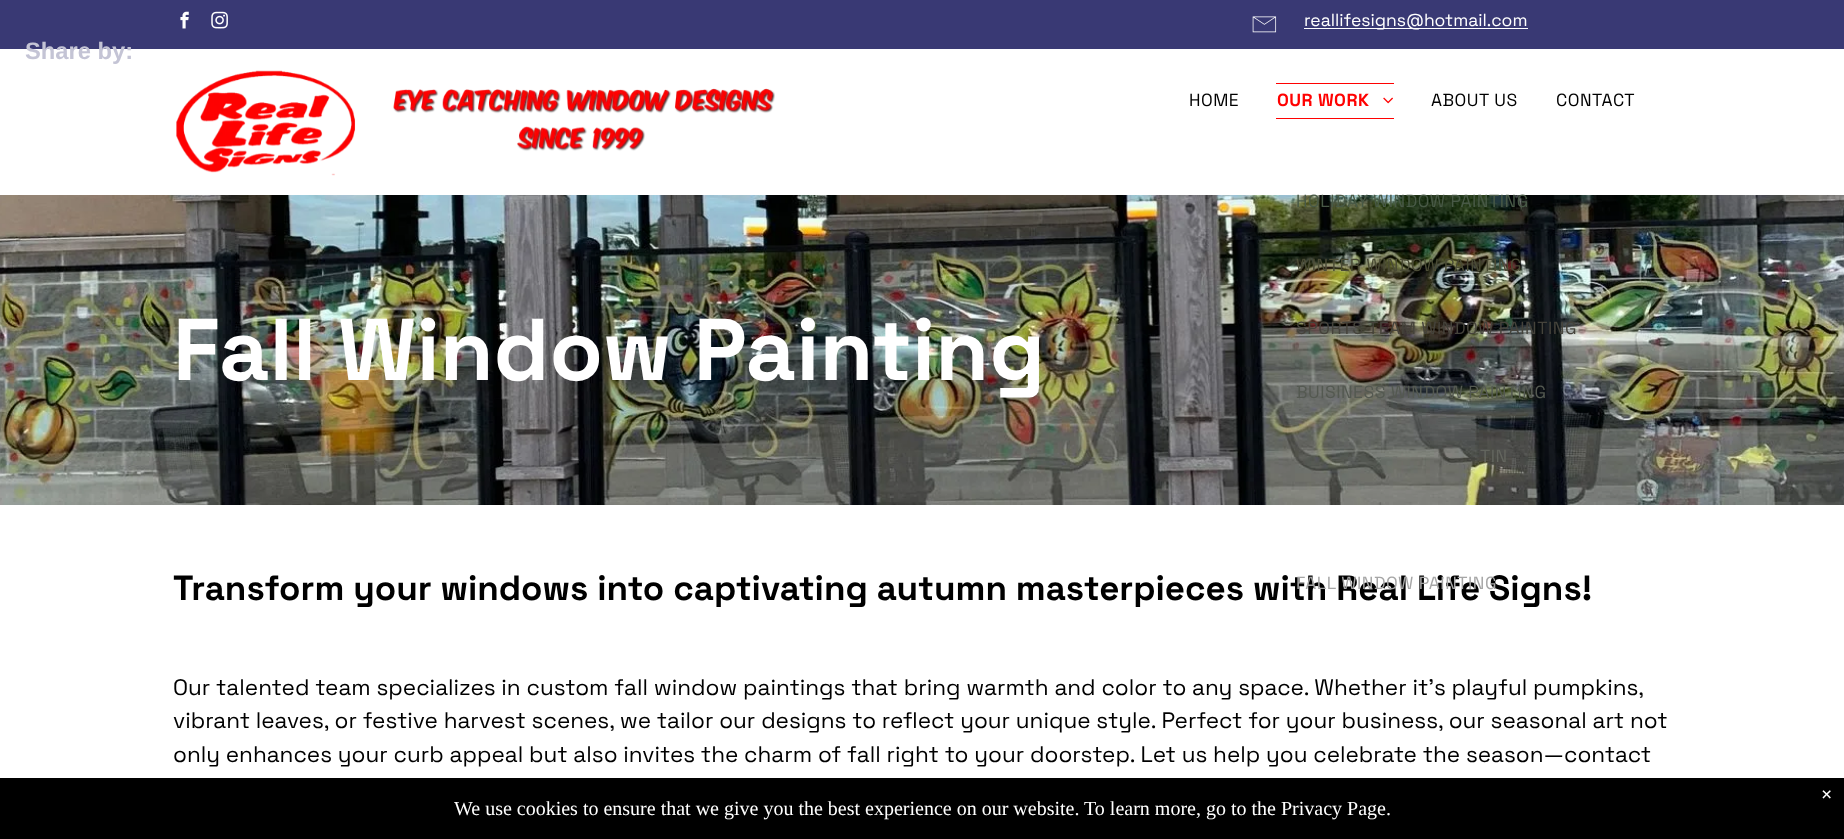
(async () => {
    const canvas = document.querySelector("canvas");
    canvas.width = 1844;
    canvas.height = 839;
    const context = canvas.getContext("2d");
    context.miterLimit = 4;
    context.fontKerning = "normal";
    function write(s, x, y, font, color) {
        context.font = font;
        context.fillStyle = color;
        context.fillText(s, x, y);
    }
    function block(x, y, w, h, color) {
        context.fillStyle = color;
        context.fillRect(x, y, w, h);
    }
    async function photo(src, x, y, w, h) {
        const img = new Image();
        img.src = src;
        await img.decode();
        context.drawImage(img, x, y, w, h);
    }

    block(0, 0, 1844, 839, "rgb(255, 255, 255)");
    block(0, 0, 1844, 49, "rgb(57, 57, 116)");
    write("Share by:", 25, 59, "bold 23.75px Liberation Sans", "rgb(196, 196, 213)");
    await photo("media/1.png", 180, 11, 9, 18);
    await photo("media/2.png", 211, 11, 17, 18);
    await photo("media/3.png", 1252, 16, 25, 17);
    block(1304, 28, 224, 1, "rgb(255, 255, 255)");
    write("reallifesigns@hotmail.com", 1304, 26, "17.5px Space Grotesk", "rgb(255, 255, 255)");
    await photo("media/4.png", 176, 70, 599, 106);
    context.letterSpacing = "0.5px";
    write("HOME", 1189, 106, "17.5px Space Grotesk", "rgb(0, 0, 0)");
    block(1276, 83, 118, 1, "rgb(255, 1, 1)");
    write("OUR WORK", 1277, 106, "bold 17.5px Space Grotesk", "rgb(255, 1, 1)");
    await photo("media/5.png", 1383, 97, 10, 7);
    block(1276, 118, 118, 1, "rgb(255, 1, 1)");
    await photo("media/6.png", 0, 195, 1844, 310);
    write("HOLIDAY WINDOW PAINTING", 1296, 207, "17.5px Space Grotesk", "rgb(72, 89, 70)");
    write("WINTER WINDOW PAINTING", 1296, 271, "17.5px Space Grotesk", "rgb(74, 75, 53)");
    write("SPORTS TEAM WINDOW PAINTING", 1296, 334, "17.5px Space Grotesk", "rgb(69, 67, 59)");
    write("BUISINESS WINDOW PAINTING", 1296, 398, "17.5px Space Grotesk", "rgb(84, 89, 81)");
    write("TIN", 1480, 462, "17.5px Space Grotesk", "rgb(99, 101, 94)");
    context.letterSpacing = "0px";
    write("Transform your windows into captivating autumn masterpieces with Real Life Signs!", 173, 600, "bold 35px Space Grotesk", "rgb(0, 0, 0)");
    context.letterSpacing = "0.5px";
    write("FALL WINDOW PAINTING", 1296, 589, "17.5px Space Grotesk", "rgb(166, 166, 166)");
    write("ABOUT US", 1431, 106, "17.5px Space Grotesk", "rgb(0, 0, 0)");
    write("CONTACT", 1556, 106, "17.5px Space Grotesk", "rgb(0, 0, 0)");
    context.letterSpacing = "0px";
    write("Fall Window Painting", 173, 380, "bold 87.5px Space Grotesk", "rgb(255, 255, 255)");
    write("Our talented team specializes in custom fall window paintings that bring warmth and color to any space. Whether it’s playful pumpkins,", 173, 695, "22.5px Space Grotesk", "rgb(0, 0, 0)");
    write("vibrant leaves, or festive harvest scenes, we tailor our designs to reflect your unique style. Perfect for your business, our seasonal art not", 173, 728, "22.5px Space Grotesk", "rgb(0, 0, 0)");
    write("only enhances your curb appeal but also invites the charm of fall right to your doorstep. Let us help you celebrate the season—contact", 173, 762, "22.5px Space Grotesk", "rgb(0, 0, 0)");
    block(0, 778, 1844, 61, "rgb(0, 0, 0)");
    write("×", 1821, 801, "bold 20px Liberation Serif", "rgb(255, 255, 255)");
    write("We use cookies to ensure that we give you the best experience on our website. To learn more, go to the Privacy Page.", 454, 815, "20px Liberation Serif", "rgb(255, 255, 255)");
})();
